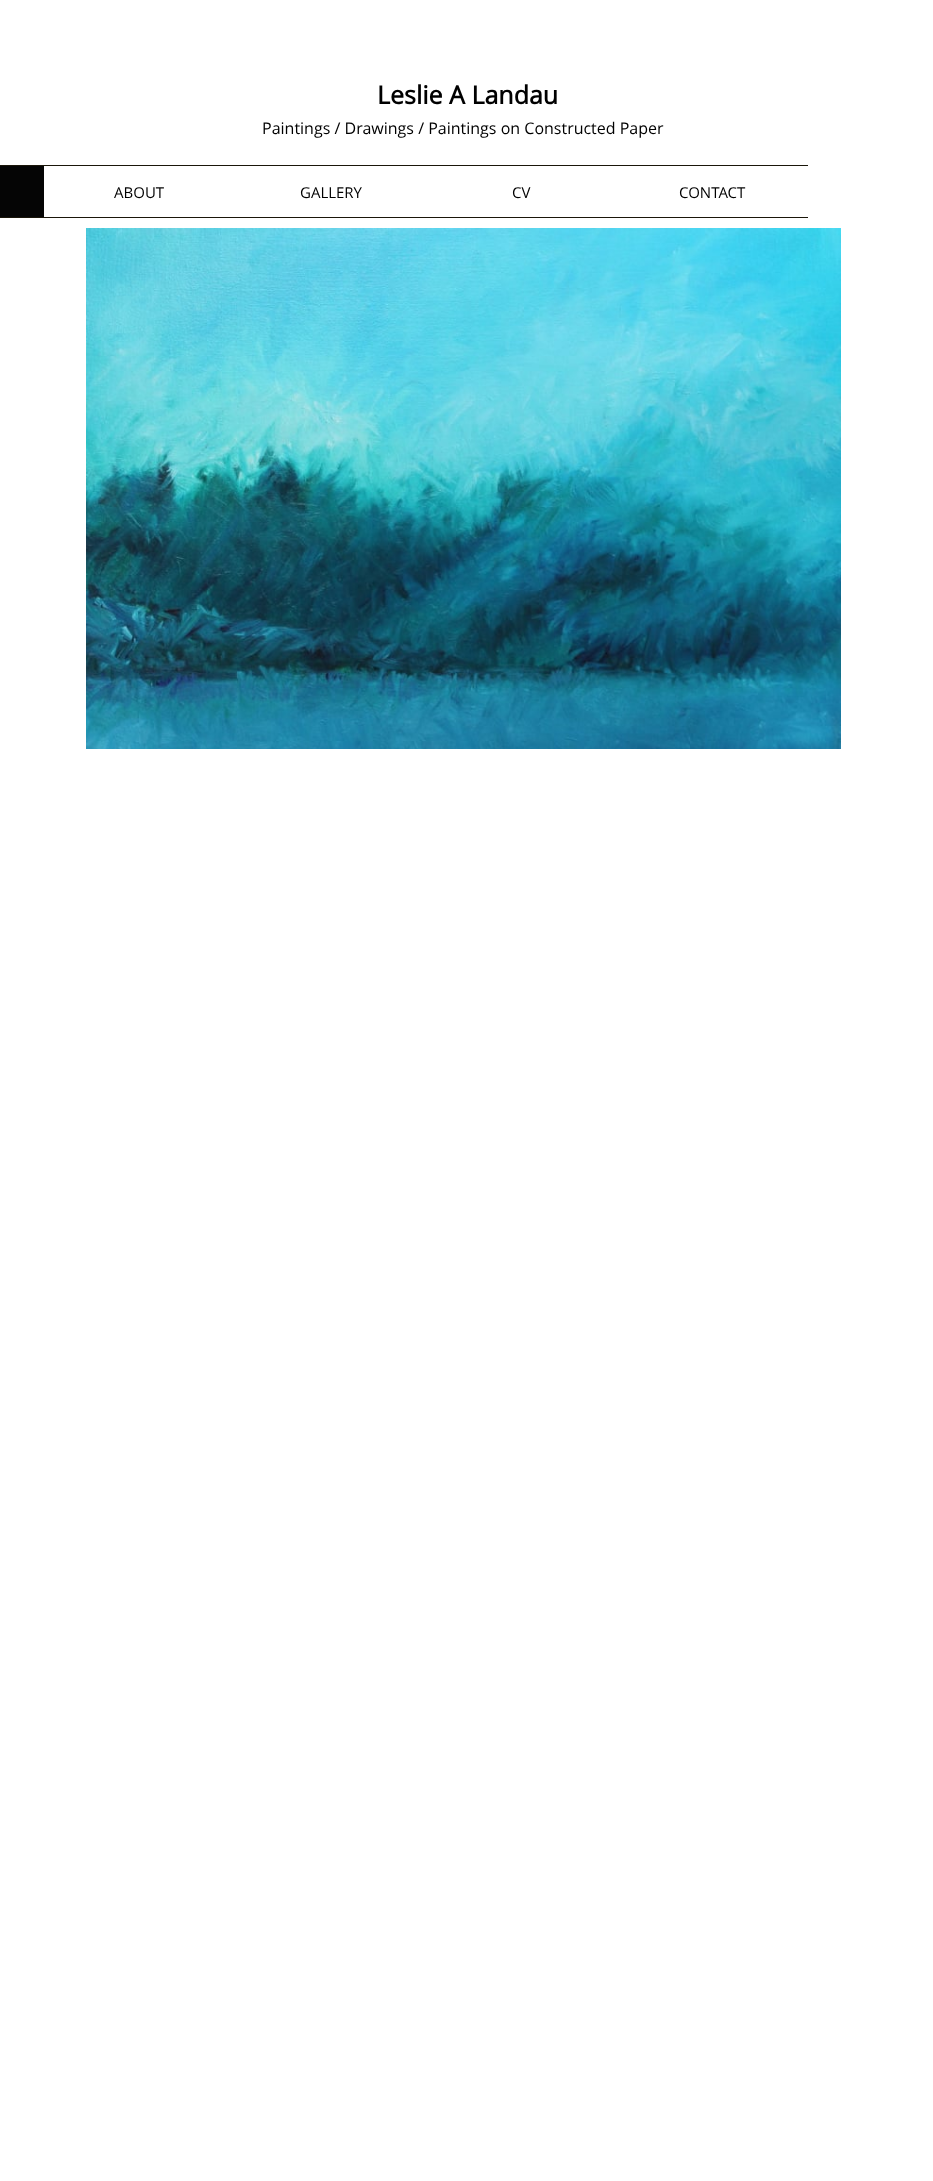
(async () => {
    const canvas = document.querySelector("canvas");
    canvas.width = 933;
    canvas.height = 2181;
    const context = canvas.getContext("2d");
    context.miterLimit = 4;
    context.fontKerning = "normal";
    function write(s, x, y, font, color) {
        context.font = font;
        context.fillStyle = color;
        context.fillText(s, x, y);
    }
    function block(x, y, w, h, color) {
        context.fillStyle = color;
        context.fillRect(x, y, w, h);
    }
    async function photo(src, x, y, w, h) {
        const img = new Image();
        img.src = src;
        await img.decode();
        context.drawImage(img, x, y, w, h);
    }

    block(0, 0, 933, 2181, "rgb(255, 255, 255)");
    write("Leslie A Landau", 377, 104, "bold 25px Open Sans", "rgb(0, 0, 0)");
    write("Paintings / Drawings / Paintings on Constructed Paper", 262, 134, "16px Open Sans", "rgb(0, 0, 0)");
    block(0, 165, 808, 1, "rgb(26, 22, 10)");
    block(0, 217, 808, 1, "rgb(26, 22, 10)");
    block(0, 166, 44, 51, "rgb(5, 5, 5)");
    write("ABOUT", 114, 198, "15px Open Sans", "rgb(0, 0, 0)");
    write("GALLERY", 300, 198, "15px Open Sans", "rgb(0, 0, 0)");
    write("CV", 512, 198, "15px Open Sans", "rgb(0, 0, 0)");
    write("CONTACT", 679, 198, "15px Open Sans", "rgb(0, 0, 0)");
    await photo("media/1.png", 86, 228, 755, 521);
})();
